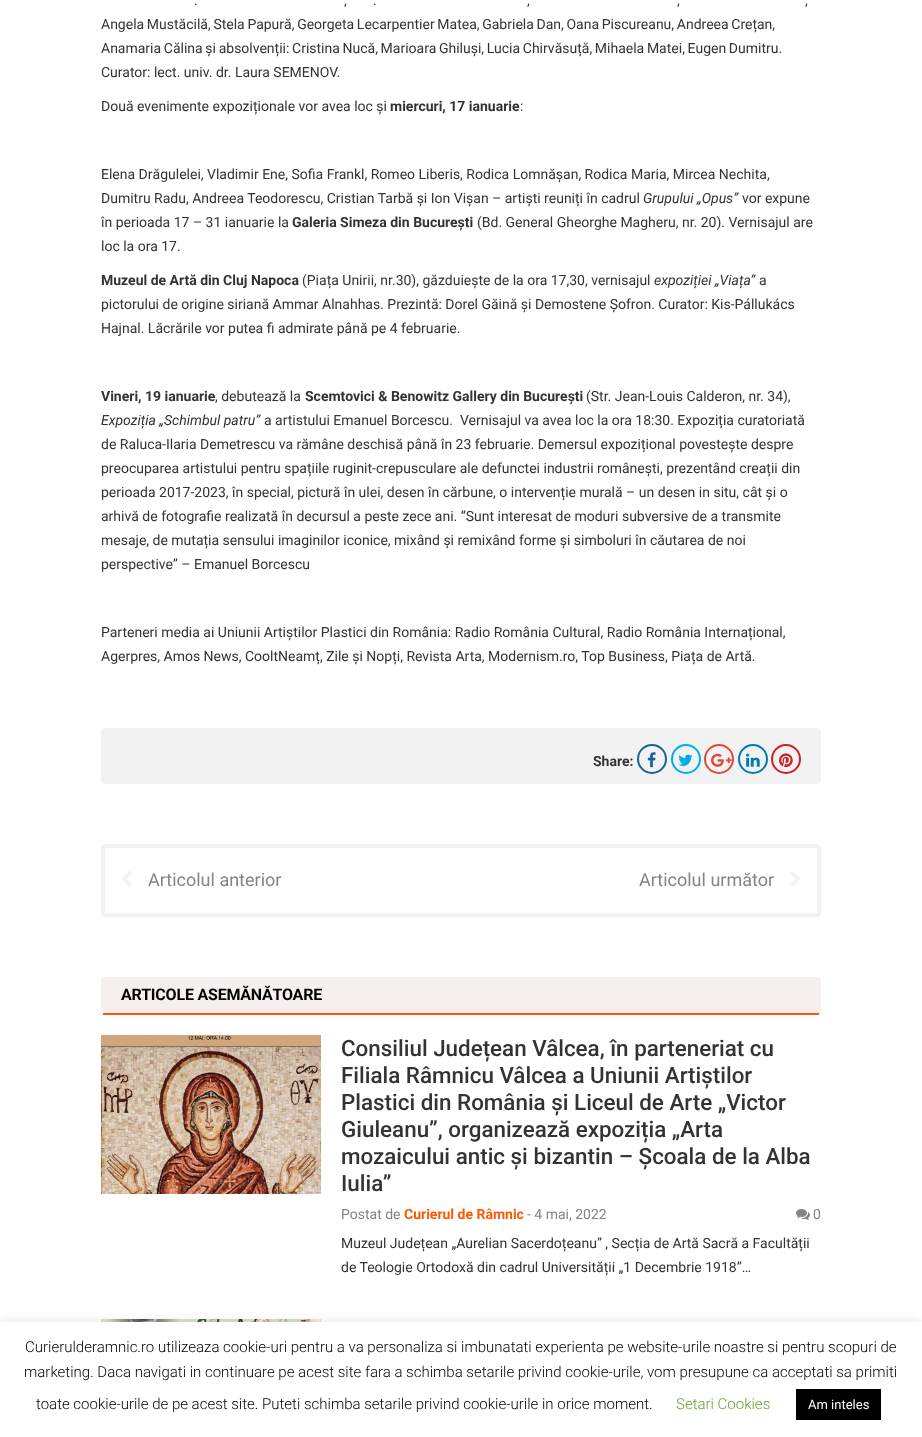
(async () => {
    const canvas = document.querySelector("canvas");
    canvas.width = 922;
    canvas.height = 1437;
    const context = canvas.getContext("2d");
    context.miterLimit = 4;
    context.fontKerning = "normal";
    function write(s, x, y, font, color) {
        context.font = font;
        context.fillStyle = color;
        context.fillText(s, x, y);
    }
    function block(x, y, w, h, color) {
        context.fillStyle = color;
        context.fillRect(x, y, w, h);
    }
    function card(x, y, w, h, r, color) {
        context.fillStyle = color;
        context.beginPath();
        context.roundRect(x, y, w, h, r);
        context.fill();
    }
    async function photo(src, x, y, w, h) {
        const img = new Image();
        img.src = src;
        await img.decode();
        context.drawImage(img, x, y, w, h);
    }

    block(0, 0, 922, 1437, "rgb(255, 255, 255)");
    write(".", 194, 5, "14px Roboto", "rgb(51, 51, 51)");
    write(",", 344, 5, "14px Roboto", "rgb(51, 51, 51)");
    write(".", 373, 5, "14px Roboto", "rgb(51, 51, 51)");
    write(",", 527, 5, "14px Roboto", "rgb(51, 51, 51)");
    write(",", 677, 5, "14px Roboto", "rgb(51, 51, 51)");
    write(",", 805, 5, "14px Roboto", "rgb(51, 51, 51)");
    context.wordSpacing = "-0.8px";
    write("Angela Mustăcilă, Stela Papură, Georgeta Lecarpentier Matea, Gabriela Dan, Oana Piscureanu, Andreea Crețan,", 101, 29, "14px Roboto", "rgb(51, 51, 51)");
    write("Anamaria Călina și absolvenții: Cristina Nucă, Marioara Ghiluși, Lucia Chirvăsuță, Mihaela Matei, Eugen Dumitru.", 101, 53, "14px Roboto", "rgb(51, 51, 51)");
    context.wordSpacing = "0px";
    write("Curator: lect. univ. dr. Laura SEMENOV.", 101, 77, "14px Roboto", "rgb(51, 51, 51)");
    write("Două evenimente expoziționale vor avea loc și", 101, 111, "14px Roboto", "rgb(51, 51, 51)");
    write("miercuri, 17 ianuarie", 390, 111, "bold 14px Roboto", "rgb(51, 51, 51)");
    write(":", 520, 111, "14px Roboto", "rgb(51, 51, 51)");
    write("Elena Drăgulelei, Vladimir Ene, Sofia Frankl, Romeo Liberis, Rodica Lomnășan, Rodica Maria, Mircea Nechita,", 101, 179, "14px Roboto", "rgb(51, 51, 51)");
    write("Dumitru Radu, Andreea Teodorescu, Cristian Tarbă și Ion Vișan – artiști reuniți în cadrul", 101, 203, "14px Roboto", "rgb(51, 51, 51)");
    write("Grupului „Opus”", 643, 203, "italic 14px Roboto", "rgb(51, 51, 51)");
    write("vor expune", 742, 203, "14px Roboto", "rgb(51, 51, 51)");
    write("în perioada 17 – 31 ianuarie la", 101, 227, "14px Roboto", "rgb(51, 51, 51)");
    write("Galeria Simeza din București", 292, 227, "bold 14px Roboto", "rgb(51, 51, 51)");
    write("(Bd. General Gheorghe Magheru, nr. 20). Vernisajul are", 477, 227, "14px Roboto", "rgb(51, 51, 51)");
    write("loc la ora 17.", 101, 251, "14px Roboto", "rgb(51, 51, 51)");
    write("Muzeul de Artă din Cluj Napoca", 101, 285, "bold 14px Roboto", "rgb(51, 51, 51)");
    write("(Piața Unirii, nr.30), găzduiește de la ora 17,30, vernisajul", 302, 285, "14px Roboto", "rgb(51, 51, 51)");
    write("expoziției „Viața”", 654, 285, "italic 14px Roboto", "rgb(51, 51, 51)");
    write("a", 759, 285, "14px Roboto", "rgb(51, 51, 51)");
    write("pictorului de origine siriană Ammar Alnahhas. Prezintă: Dorel Găină și Demostene Șofron. Curator: Kis-Pállukács", 101, 309, "14px Roboto", "rgb(51, 51, 51)");
    write("Hajnal. Lăcrările vor putea fi admirate până pe 4 februarie.", 101, 333, "14px Roboto", "rgb(51, 51, 51)");
    write("Vineri, 19 ianuarie", 101, 401, "bold 14px Roboto", "rgb(51, 51, 51)");
    write(", debutează la", 215, 401, "14px Roboto", "rgb(51, 51, 51)");
    write("Scemtovici & Benowitz Gallery din București", 305, 401, "bold 14px Roboto", "rgb(51, 51, 51)");
    write("(Str. Jean-Louis Calderon, nr. 34),", 586, 401, "14px Roboto", "rgb(51, 51, 51)");
    write("Expoziția „Schimbul patru”", 101, 425, "italic 14px Roboto", "rgb(51, 51, 51)");
    write("a artistului Emanuel Borcescu.  Vernisajul va avea loc la ora 18:30. Expoziția curatoriată", 264, 425, "14px Roboto", "rgb(51, 51, 51)");
    write("de Raluca-Ilaria Demetrescu va rămâne deschisă până în 23 februarie. Demersul expozițional povestește despre", 101, 449, "14px Roboto", "rgb(51, 51, 51)");
    write("preocuparea artistului pentru spațiile ruginit-crepusculare ale defunctei industrii românești, prezentând creații din", 101, 473, "14px Roboto", "rgb(51, 51, 51)");
    write("perioada 2017-2023, în special, pictură în ulei, desen în cărbune, o intervenție murală – un desen in situ, cât și o", 101, 497, "14px Roboto", "rgb(51, 51, 51)");
    write("arhivă de fotografie realizată în decursul a peste zece ani. “Sunt interesat de moduri subversive de a transmite", 101, 521, "14px Roboto", "rgb(51, 51, 51)");
    write("mesaje, de mutația sensului imaginilor iconice, mixând și remixând forme și simboluri în căutarea de noi", 101, 545, "14px Roboto", "rgb(51, 51, 51)");
    write("perspective” – Emanuel Borcescu", 101, 569, "14px Roboto", "rgb(51, 51, 51)");
    write("Parteneri media ai Uniunii Artiștilor Plastici din România: Radio România Cultural, Radio România Internațional,", 101, 637, "14px Roboto", "rgb(51, 51, 51)");
    write("Agerpres, Amos News, CooltNeamț, Zile și Nopți, Revista Arta, Modernism.ro, Top Business, Piața de Artă.", 101, 661, "14px Roboto", "rgb(51, 51, 51)");
    card(101, 728, 720, 56, 4, "rgb(242, 242, 242)");
    write("Share:", 593, 766, "bold 14px Roboto", "rgb(51, 51, 51)");
    context.beginPath();
    context.arc(652, 759, 14, 0, Math.PI * 2);
    context.strokeStyle = "rgb(21, 98, 156)";
    context.lineWidth = 2;
    context.stroke();
    await photo("media/1.png", 647, 752, 9, 16);
    context.beginPath();
    context.arc(686, 759, 14, 0, Math.PI * 2);
    context.strokeStyle = "rgb(0, 172, 237)";
    context.stroke();
    await photo("media/2.png", 678, 754, 15, 12);
    context.beginPath();
    context.arc(719, 759, 14, 0, Math.PI * 2);
    context.strokeStyle = "rgb(221, 75, 57)";
    context.stroke();
    await photo("media/3.png", 711, 753, 21, 14);
    context.beginPath();
    context.arc(753, 759, 14, 0, Math.PI * 2);
    context.strokeStyle = "rgb(0, 122, 181)";
    context.stroke();
    await photo("media/4.png", 746, 753, 14, 14);
    context.beginPath();
    context.arc(786, 759, 14, 0, Math.PI * 2);
    context.strokeStyle = "rgb(203, 32, 39)";
    context.stroke();
    await photo("media/5.png", 779, 753, 14, 15);
    context.beginPath();
    context.roundRect(103, 846, 716, 69, 2);
    context.strokeStyle = "rgb(242, 242, 242)";
    context.lineWidth = 4;
    context.stroke();
    await photo("media/6.png", 122, 871, 10, 16);
    write("Articolul anterior", 148, 886, "18px Roboto", "rgb(133, 132, 132)");
    write("Articolul următor", 639, 886, "18px Roboto", "rgb(133, 132, 132)");
    await photo("media/7.png", 790, 871, 10, 16);
    card(101, 977, 720, 38, 4, "rgb(245, 239, 237)");
    block(103, 1013, 716, 2, "rgb(255, 89, 0)");
    context.letterSpacing = "-0.2px";
    write("ARTICOLE ASEMĂNĂTOARE", 121, 1000, "bold 16px Roboto", "rgb(0, 0, 0)");
    await photo("media/8.png", 101, 1035, 220, 159);
    context.letterSpacing = "0px";
    write("Consiliul Județean Vâlcea, în parteneriat cu", 341, 1056, "500 22.4px Roboto", "rgb(51, 51, 51)");
    write("Filiala Râmnicu Vâlcea a Uniunii Artiștilor", 341, 1083, "500 22.4px Roboto", "rgb(51, 51, 51)");
    write("Plastici din România și Liceul de Arte „Victor", 341, 1110, "500 22.4px Roboto", "rgb(51, 51, 51)");
    write("Giuleanu”, organizează expoziția „Arta", 341, 1137, "500 22.4px Roboto", "rgb(51, 51, 51)");
    write("mozaicului antic și bizantin – Școala de la Alba", 341, 1164, "500 22.4px Roboto", "rgb(51, 51, 51)");
    write("Iulia”", 341, 1191, "500 22.4px Roboto", "rgb(51, 51, 51)");
    write("Postat de", 341, 1219, "14px Roboto", "rgb(133, 132, 132)");
    write("Curierul de Râmnic", 404, 1219, "bold 14px Roboto", "rgb(255, 89, 0)");
    write("- 4 mai, 2022", 527, 1219, "14px Roboto", "rgb(133, 132, 132)");
    await photo("media/9.png", 796, 1209, 14, 11);
    write("0", 813, 1219, "14px Roboto", "rgb(133, 132, 132)");
    write("Muzeul Județean „Aurelian Sacerdoțeanu” , Secția de Artă Sacră a Facultății", 341, 1248, "14px Roboto", "rgb(51, 51, 51)");
    write("de Teologie Ortodoxă din cadrul Universității „1 Decembrie 1918”…", 341, 1272, "14px Roboto", "rgb(51, 51, 51)");
    await photo("media/10.png", 101, 1319, 220, 3);
    context.fillStyle = "rgba(172, 171, 171, 0.3)";
    context.filter = "blur(5px)";
    context.beginPath();
    context.rect(0, 1321, 922, 115);
    context.fill();
    context.filter = "none";
    block(0, 1322, 922, 115, "rgb(255, 255, 255)");
    write("Curierulderamnic.ro utilizeaza cookie-uri pentru a va personaliza si imbunatati experienta pe website-urile noastre si pentru scopuri de", 25, 1352, "300 15px Roboto", "rgb(0, 0, 0)");
    write("marketing. Daca navigati in continuare pe acest site fara a schimba setarile privind cookie-urile, vom presupune ca acceptati sa primiti", 24, 1377, "300 15px Roboto", "rgb(0, 0, 0)");
    write("toate cookie-urile de pe acest site. Puteti schimba setarile privind cookie-urile in orice moment.", 36, 1409, "300 15px Roboto", "rgb(0, 0, 0)");
    write("Setari Cookies", 676, 1409, "300 15px Roboto", "rgb(98, 163, 41)");
    block(796, 1389, 85, 31, "rgb(0, 0, 0)");
    write("Am inteles", 808, 1409, "13px Roboto", "rgb(255, 255, 255)");
})();
